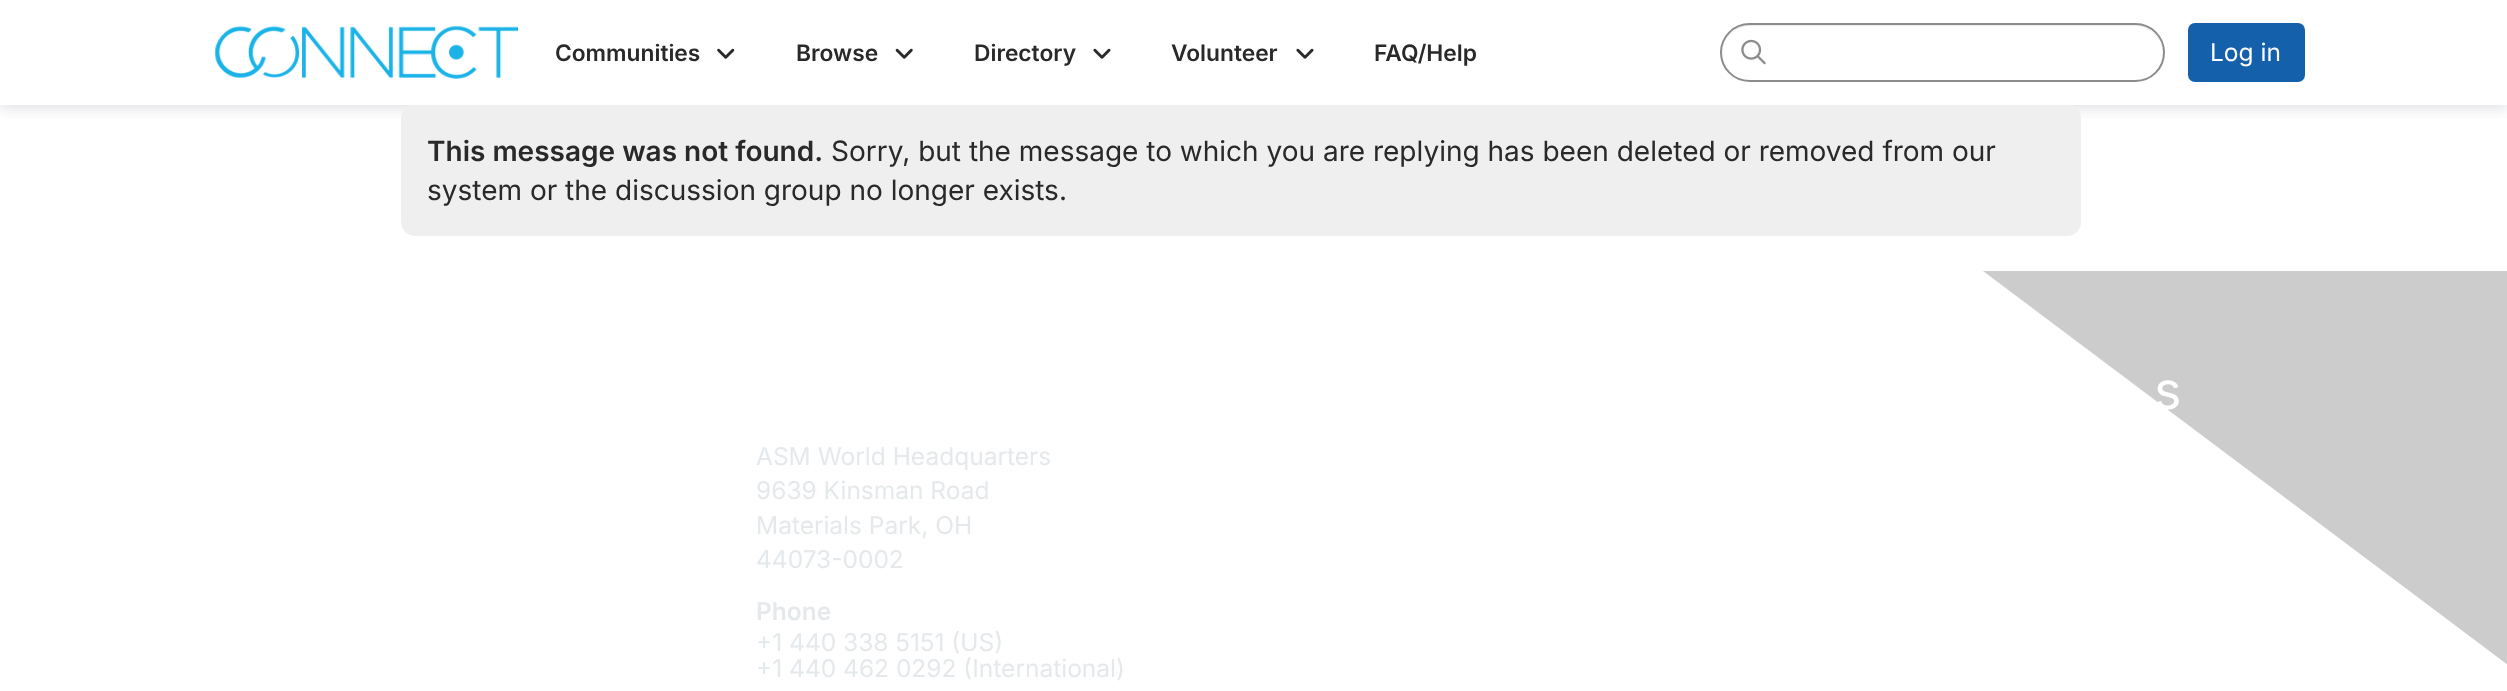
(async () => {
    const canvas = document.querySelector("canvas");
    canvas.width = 2507;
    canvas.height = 691;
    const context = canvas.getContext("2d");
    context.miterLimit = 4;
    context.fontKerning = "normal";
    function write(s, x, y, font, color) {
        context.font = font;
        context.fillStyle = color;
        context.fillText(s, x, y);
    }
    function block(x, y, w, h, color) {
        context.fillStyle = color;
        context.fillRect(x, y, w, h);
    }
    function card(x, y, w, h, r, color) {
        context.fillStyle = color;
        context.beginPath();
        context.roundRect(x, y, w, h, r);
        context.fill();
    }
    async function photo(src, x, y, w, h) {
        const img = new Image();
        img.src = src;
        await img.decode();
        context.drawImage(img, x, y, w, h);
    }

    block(0, 0, 2507, 691, "rgb(255, 255, 255)");
    context.save();
    context.beginPath();
    context.rect(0, 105, 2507, 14);
    context.clip();
    context.fillStyle = "rgba(131, 135, 145, 0.24)";
    context.filter = "blur(7px)";
    context.beginPath();
    context.rect(0, 4, 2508, 105);
    context.fill();
    context.filter = "none";
    context.restore();
    await photo("media/1.png", 215, 26, 303, 53);
    write("Communities", 555, 61, "600 22.75px Inter", "rgb(41, 41, 41)");
    await photo("media/2.png", 717, 48, 18, 11);
    write("Browse", 796, 61, "600 22.75px Inter", "rgb(41, 41, 41)");
    await photo("media/3.png", 895, 48, 18, 11);
    write("Directory", 974, 61, "600 22.75px Inter", "rgb(41, 41, 41)");
    await photo("media/4.png", 1093, 48, 18, 11);
    write("Volunteer", 1171, 61, "600 22.75px Inter", "rgb(41, 41, 41)");
    await photo("media/4.png", 1296, 48, 18, 11);
    write("FAQ/Help", 1374, 61, "600 22.75px Inter", "rgb(41, 41, 41)");
    context.fillStyle = "rgb(236, 236, 236)";
    context.beginPath();
    context.moveTo(1750, 26);
    context.lineTo(2135, 26);
    context.bezierCurveTo(2150, 26, 2163, 39, 2163, 54);
    context.bezierCurveTo(2163, 38, 2150, 25, 2135, 25);
    context.lineTo(1750, 25);
    context.bezierCurveTo(1735, 25, 1722, 38, 1722, 54);
    context.bezierCurveTo(1722, 39, 1735, 26, 1750, 26);
    context.closePath();
    context.fill();
    context.beginPath();
    context.roundRect(1721, 24, 443, 57, 28.5);
    context.strokeStyle = "rgb(140, 140, 140)";
    context.lineWidth = 2;
    context.stroke();
    await photo("media/5.png", 1741, 39, 25, 26);
    context.fillStyle = "rgb(20, 96, 170)";
    context.beginPath();
    context.roundRect(2189, 24, 115, 57, 6);
    context.fill();
    context.strokeStyle = "rgb(20, 96, 170)";
    context.stroke();
    write("Log in", 2210, 61, "24.5px Inter", "rgb(255, 255, 255)");
    card(401, 105, 1680, 131, 14, "rgb(239, 239, 239)");
    write("This message was not found.", 427, 161, "600 28px Inter", "rgb(41, 41, 41)");
    write("Sorry, but the message to which you are replying has been deleted or removed from our", 831, 161, "28px Inter", "rgb(41, 41, 41)");
    write("system or the discussion group no longer exists.", 427, 200, "28px Inter", "rgb(41, 41, 41)");
    context.fillStyle = "rgb(204, 204, 204)";
    context.beginPath();
    context.moveTo(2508, 271);
    context.lineTo(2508, 665);
    context.lineTo(1983, 271);
    context.closePath();
    context.fill();
    write("s", 2154, 409, "52px Inter", "rgb(255, 255, 255)");
    write("ASM World Headquarters", 756, 465, "24.5px Inter", "rgb(229, 233, 235)");
    write("9639 Kinsman Road", 756, 499, "24.5px Inter", "rgb(229, 233, 235)");
    write("Materials Park, OH", 756, 534, "24.5px Inter", "rgb(229, 233, 235)");
    write("44073-0002", 756, 568, "24.5px Inter", "rgb(229, 233, 235)");
    write("Phone", 756, 620, "600 24.5px Inter", "rgb(229, 233, 235)");
    write("+1 440 338 5151 (US)", 756, 651, "24.5px Inter", "rgb(229, 233, 235)");
    write("+1 440 462 0292 (International)", 756, 677, "24.5px Inter", "rgb(229, 233, 235)");
})();
